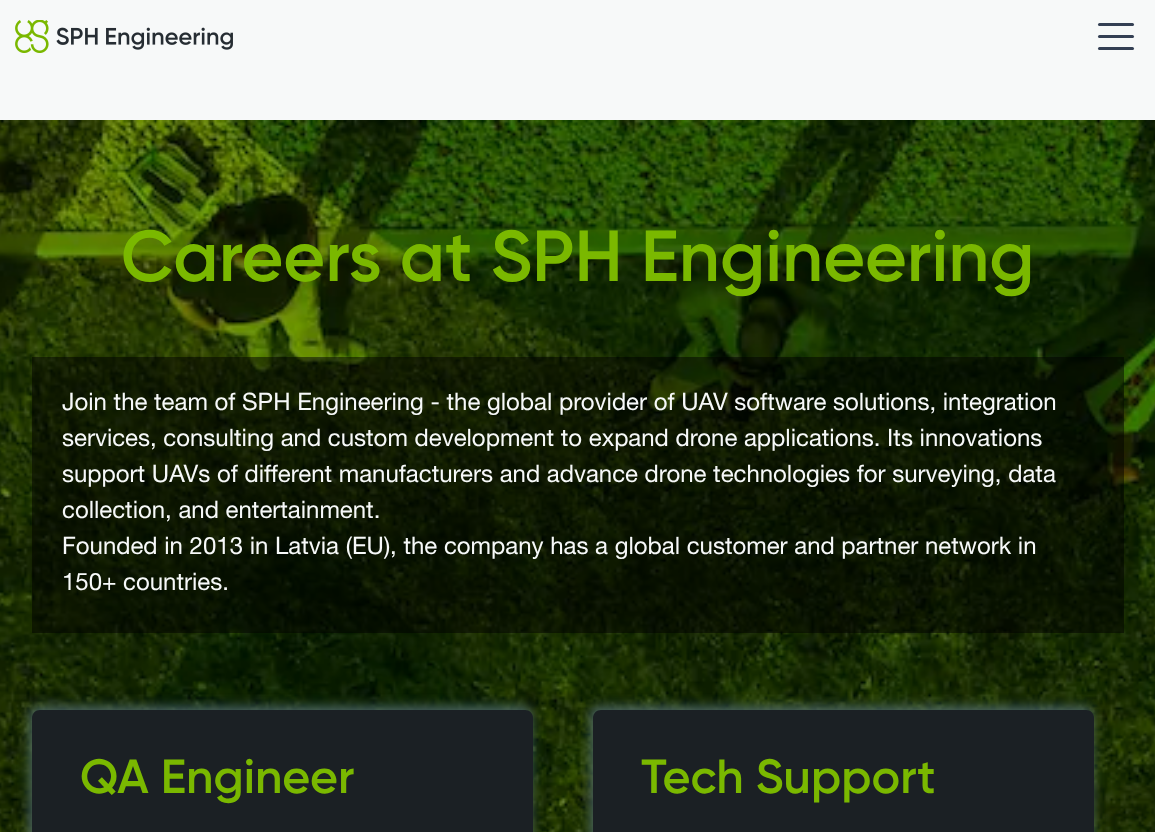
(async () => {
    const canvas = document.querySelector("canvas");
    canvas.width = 1155;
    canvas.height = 832;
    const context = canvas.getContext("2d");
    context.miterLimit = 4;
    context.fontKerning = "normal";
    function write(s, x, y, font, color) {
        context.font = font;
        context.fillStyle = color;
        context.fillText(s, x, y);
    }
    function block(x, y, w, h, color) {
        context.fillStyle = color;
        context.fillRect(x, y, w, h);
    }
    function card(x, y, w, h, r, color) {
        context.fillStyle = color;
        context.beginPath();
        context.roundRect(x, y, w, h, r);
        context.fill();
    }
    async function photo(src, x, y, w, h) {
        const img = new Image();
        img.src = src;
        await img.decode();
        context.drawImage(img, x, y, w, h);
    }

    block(0, 0, 1155, 832, "rgb(255, 255, 255)");
    block(0, 0, 1155, 120, "rgb(247, 249, 249)");
    await photo("media/1.png", 15, 20, 218, 33);
    card(1098, 23, 36, 3, 1.5, "rgb(52, 64, 84)");
    card(1098, 35, 36, 3, 1.5, "rgb(52, 64, 84)");
    card(1098, 47, 36, 3, 1.5, "rgb(52, 64, 84)");
    await photo("media/2.png", 0, 120, 1155, 712);
    write("Careers at SPH Engineering", 121, 281, "600 72px Gilroy", "rgb(122, 184, 0)");
    block(32, 357, 1092, 276, "rgba(0, 0, 0, 0.5)");
    write("Join the team of SPH Engineering - the global provider of UAV software solutions, integration", 62, 410, "24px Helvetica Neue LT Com", "rgb(247, 249, 249)");
    write("services, consulting and custom development to expand drone applications. Its innovations", 62, 446, "24px Helvetica Neue LT Com", "rgb(247, 249, 249)");
    write("support UAVs of different manufacturers and advance drone technologies for surveying, data", 62, 482, "24px Helvetica Neue LT Com", "rgb(247, 249, 249)");
    write("collection, and entertainment.", 62, 518, "24px Helvetica Neue LT Com", "rgb(247, 249, 249)");
    write("Founded in 2013 in Latvia (EU), the company has a global customer and partner network in", 62, 554, "24px Helvetica Neue LT Com", "rgb(247, 249, 249)");
    write("150+ countries.", 62, 590, "24px Helvetica Neue LT Com", "rgb(247, 249, 249)");
    context.fillStyle = "rgb(79, 107, 107)";
    context.filter = "blur(6px)";
    context.beginPath();
    context.roundRect(30, 707, 501, 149, 6);
    context.fill();
    context.filter = "none";
    context.fillStyle = "rgb(27, 32, 36)";
    context.beginPath();
    context.moveTo(40, 710);
    context.lineTo(525, 710);
    context.bezierCurveTo(529.5, 710, 533, 713.5, 533, 718);
    context.lineTo(533, 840);
    context.lineTo(32, 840);
    context.lineTo(32, 718);
    context.bezierCurveTo(32, 713.5, 35.5, 710, 40, 710);
    context.closePath();
    context.fill();
    write("QA Engineer", 80, 793, "600 48px Gilroy", "rgb(122, 184, 0)");
    context.fillStyle = "rgb(79, 107, 107)";
    context.filter = "blur(6px)";
    context.beginPath();
    context.roundRect(591, 707, 501, 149, 6);
    context.fill();
    context.filter = "none";
    context.fillStyle = "rgb(27, 32, 36)";
    context.beginPath();
    context.moveTo(601, 710);
    context.lineTo(1086, 710);
    context.bezierCurveTo(1090.5, 710, 1094, 713.5, 1094, 718);
    context.lineTo(1094, 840);
    context.lineTo(593, 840);
    context.lineTo(593, 718);
    context.bezierCurveTo(593, 713.5, 596.5, 710, 601, 710);
    context.closePath();
    context.fill();
    write("Tech Support", 641, 793, "600 48px Gilroy", "rgb(122, 184, 0)");
})();
